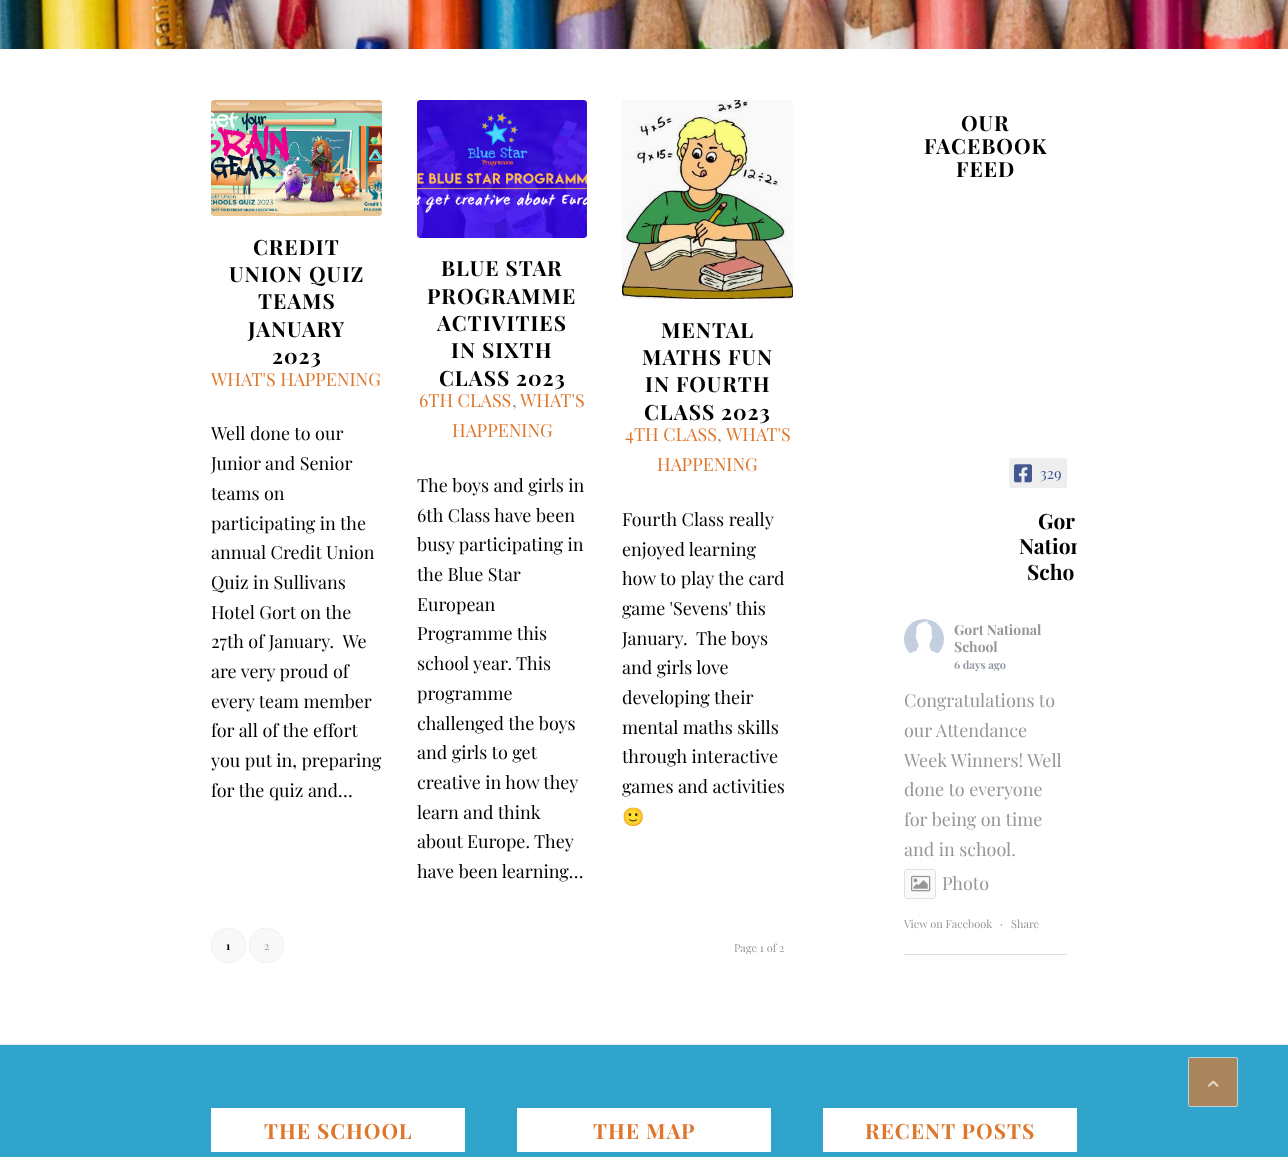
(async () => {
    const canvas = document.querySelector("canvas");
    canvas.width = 1288;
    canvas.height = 1157;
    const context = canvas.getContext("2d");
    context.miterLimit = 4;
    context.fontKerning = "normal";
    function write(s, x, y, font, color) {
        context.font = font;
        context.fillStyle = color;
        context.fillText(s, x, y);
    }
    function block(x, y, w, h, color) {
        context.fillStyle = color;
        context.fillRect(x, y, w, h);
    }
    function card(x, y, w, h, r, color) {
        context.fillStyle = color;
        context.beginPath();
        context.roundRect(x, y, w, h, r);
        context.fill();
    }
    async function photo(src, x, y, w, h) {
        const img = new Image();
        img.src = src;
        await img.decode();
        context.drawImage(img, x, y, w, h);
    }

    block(0, 0, 1288, 1157, "rgb(255, 255, 255)");
    await photo("media/1.png", 0, 0, 1288, 49);
    card(211, 100, 171, 116, 3, "rgb(248, 248, 248)");
    await photo("media/2.png", 211, 100, 171, 116);
    context.letterSpacing = "1px";
    write("CREDIT", 253, 255, "bold 21px Playfair Display", "rgb(0, 0, 0)");
    write("UNION QUIZ", 229, 282, "bold 21px Playfair Display", "rgb(0, 0, 0)");
    write("TEAMS", 258, 309, "bold 21px Playfair Display", "rgb(0, 0, 0)");
    write("JANUARY", 248, 337, "bold 21px Playfair Display", "rgb(0, 0, 0)");
    write("2023", 272, 364, "bold 21px Playfair Display", "rgb(0, 0, 0)");
    context.letterSpacing = "0px";
    write("WHAT'S HAPPENING", 211, 386, "18px Playfair Display", "rgb(222, 118, 44)");
    write("Well done to our", 211, 440, "18px Playfair Display", "rgb(0, 0, 0)");
    write("Junior and Senior", 211, 470, "18px Playfair Display", "rgb(0, 0, 0)");
    write("teams on", 211, 500, "18px Playfair Display", "rgb(0, 0, 0)");
    write("participating in the", 211, 530, "18px Playfair Display", "rgb(0, 0, 0)");
    write("annual Credit Union", 211, 559, "18px Playfair Display", "rgb(0, 0, 0)");
    write("Quiz in Sullivans", 211, 589, "18px Playfair Display", "rgb(0, 0, 0)");
    write("Hotel Gort on the", 211, 619, "18px Playfair Display", "rgb(0, 0, 0)");
    write("27th of January.  We", 211, 648, "18px Playfair Display", "rgb(0, 0, 0)");
    write("are very proud of", 211, 678, "18px Playfair Display", "rgb(0, 0, 0)");
    write("every team member", 211, 708, "18px Playfair Display", "rgb(0, 0, 0)");
    write("for all of the effort", 211, 737, "18px Playfair Display", "rgb(0, 0, 0)");
    write("you put in, preparing", 211, 767, "18px Playfair Display", "rgb(0, 0, 0)");
    write("for the quiz and…", 211, 797, "18px Playfair Display", "rgb(0, 0, 0)");
    card(417, 100, 170, 138, 3, "rgb(248, 248, 248)");
    await photo("media/3.png", 417, 100, 170, 138);
    context.letterSpacing = "1px";
    write("BLUE STAR", 441, 276, "bold 21px Playfair Display", "rgb(0, 0, 0)");
    write("PROGRAMME", 427, 304, "bold 21px Playfair Display", "rgb(0, 0, 0)");
    write("ACTIVITIES", 437, 331, "bold 21px Playfair Display", "rgb(0, 0, 0)");
    write("IN SIXTH", 451, 358, "bold 21px Playfair Display", "rgb(0, 0, 0)");
    write("CLASS 2023", 439, 386, "bold 21px Playfair Display", "rgb(0, 0, 0)");
    context.letterSpacing = "0px";
    write("6TH CLASS", 419, 407, "18px Playfair Display", "rgb(222, 118, 44)");
    write(",", 512, 407, "18px Playfair Display", "rgb(150, 150, 150)");
    write("WHAT'S", 520, 407, "18px Playfair Display", "rgb(222, 118, 44)");
    write("HAPPENING", 452, 437, "18px Playfair Display", "rgb(222, 118, 44)");
    write("The boys and girls in", 417, 492, "18px Playfair Display", "rgb(0, 0, 0)");
    write("6th Class have been", 417, 522, "18px Playfair Display", "rgb(0, 0, 0)");
    write("busy participating in", 417, 551, "18px Playfair Display", "rgb(0, 0, 0)");
    write("the Blue Star", 417, 581, "18px Playfair Display", "rgb(0, 0, 0)");
    write("European", 417, 611, "18px Playfair Display", "rgb(0, 0, 0)");
    write("Programme this", 417, 640, "18px Playfair Display", "rgb(0, 0, 0)");
    write("school year. This", 417, 670, "18px Playfair Display", "rgb(0, 0, 0)");
    write("programme", 417, 700, "18px Playfair Display", "rgb(0, 0, 0)");
    write("challenged the boys", 417, 730, "18px Playfair Display", "rgb(0, 0, 0)");
    write("and girls to get", 417, 759, "18px Playfair Display", "rgb(0, 0, 0)");
    write("creative in how they", 417, 789, "18px Playfair Display", "rgb(0, 0, 0)");
    write("learn and think", 417, 819, "18px Playfair Display", "rgb(0, 0, 0)");
    write("about Europe. They", 417, 848, "18px Playfair Display", "rgb(0, 0, 0)");
    write("have been learning…", 417, 878, "18px Playfair Display", "rgb(0, 0, 0)");
    card(622, 100, 171, 199, 3, "rgb(248, 248, 248)");
    await photo("media/4.png", 622, 100, 171, 199);
    context.letterSpacing = "1px";
    write("MENTAL", 661, 338, "bold 21px Playfair Display", "rgb(0, 0, 0)");
    write("MATHS FUN", 642, 365, "bold 21px Playfair Display", "rgb(0, 0, 0)");
    write("IN FOURTH", 645, 392, "bold 21px Playfair Display", "rgb(0, 0, 0)");
    write("CLASS 2023", 644, 420, "bold 21px Playfair Display", "rgb(0, 0, 0)");
    context.letterSpacing = "0px";
    write("4TH CLASS", 625, 441, "18px Playfair Display", "rgb(222, 118, 44)");
    write(",", 717, 441, "18px Playfair Display", "rgb(150, 150, 150)");
    write("WHAT'S", 726, 441, "18px Playfair Display", "rgb(222, 118, 44)");
    write("HAPPENING", 657, 471, "18px Playfair Display", "rgb(222, 118, 44)");
    write("Fourth Class really", 622, 526, "18px Playfair Display", "rgb(0, 0, 0)");
    write("enjoyed learning", 622, 556, "18px Playfair Display", "rgb(0, 0, 0)");
    write("how to play the card", 622, 585, "18px Playfair Display", "rgb(0, 0, 0)");
    write("game 'Sevens' this", 622, 615, "18px Playfair Display", "rgb(0, 0, 0)");
    write("January.  The boys", 622, 645, "18px Playfair Display", "rgb(0, 0, 0)");
    write("and girls love", 622, 674, "18px Playfair Display", "rgb(0, 0, 0)");
    write("developing their", 622, 704, "18px Playfair Display", "rgb(0, 0, 0)");
    write("mental maths skills", 622, 734, "18px Playfair Display", "rgb(0, 0, 0)");
    write("through interactive", 622, 763, "18px Playfair Display", "rgb(0, 0, 0)");
    write("games and activities", 622, 793, "18px Playfair Display", "rgb(0, 0, 0)");
    write("🙂", 622, 823, "18px Noto Color Emoji", "rgb(0, 0, 0)");
    context.fillStyle = "rgba(0, 0, 0, 0.2)";
    context.filter = "blur(0.5px)";
    context.beginPath();
    context.roundRect(211, 928, 35, 35, 17.5);
    context.fill();
    context.filter = "none";
    context.fillStyle = "rgb(248, 248, 248)";
    context.beginPath();
    context.arc(228.5, 945.5, 17.5, 0, Math.PI * 2);
    context.fill();
    write("1", 226, 950, "bold 11px Playfair Display", "rgb(0, 0, 0)");
    context.fillStyle = "rgba(0, 0, 0, 0.2)";
    context.filter = "blur(0.5px)";
    context.beginPath();
    context.roundRect(249, 928, 35, 35, 17.5);
    context.fill();
    context.filter = "none";
    context.fillStyle = "rgb(248, 248, 248)";
    context.beginPath();
    context.arc(266.5, 945.5, 17.5, 0, Math.PI * 2);
    context.fill();
    write("2", 264, 950, "11px Playfair Display", "rgb(150, 150, 150)");
    write("Page 1 of 2", 734, 952, "11px Playfair Display", "rgb(150, 150, 150)");
    context.letterSpacing = "1px";
    write("OUR", 961, 131, "bold 21px Playfair Display", "rgb(0, 0, 0)");
    write("FACEBOOK", 924, 154, "bold 21px Playfair Display", "rgb(0, 0, 0)");
    write("FEED", 956, 177, "bold 21px Playfair Display", "rgb(0, 0, 0)");
    card(1009, 458, 58, 30, 2, "rgb(238, 238, 238)");
    await photo("media/5.png", 1014, 464, 18, 19);
    context.letterSpacing = "0px";
    write("329", 1040, 479, "15px Playfair Display", "rgb(68, 87, 144)");
    write("Gor", 1038, 529, "bold 21px Playfair Display", "rgb(0, 0, 0)");
    context.save();
    context.beginPath();
    context.rect(844, 50, 233, 994);
    context.clip();
    write("Nation", 1019, 554, "bold 21px Playfair Display", "rgb(0, 0, 0)");
    context.restore();
    write("Scho", 1027, 580, "bold 21px Playfair Display", "rgb(0, 0, 0)");
    block(904, 954, 163, 1, "rgb(221, 221, 221)");
    await photo("media/6.png", 904, 619, 40, 35);
    write("Gort National", 954, 635, "bold 14px Playfair Display", "rgb(150, 150, 150)");
    write("School", 954, 652, "bold 14px Playfair Display", "rgb(150, 150, 150)");
    write("6 days ago", 954, 669, "bold 11px Playfair Display", "rgb(145, 151, 163)");
    write("Congratulations to", 904, 707, "18px Playfair Display", "rgb(150, 150, 150)");
    write("our Attendance", 904, 737, "18px Playfair Display", "rgb(150, 150, 150)");
    write("Week Winners! Well", 904, 767, "18px Playfair Display", "rgb(150, 150, 150)");
    write("done to everyone", 904, 796, "18px Playfair Display", "rgb(150, 150, 150)");
    write("for being on time", 904, 826, "18px Playfair Display", "rgb(150, 150, 150)");
    write("and in school.", 904, 856, "18px Playfair Display", "rgb(150, 150, 150)");
    context.fillStyle = "rgb(250, 250, 250)";
    context.beginPath();
    context.roundRect(904.5, 869.5, 31, 29, 2.5);
    context.fill();
    context.strokeStyle = "rgb(225, 225, 225)";
    context.stroke();
    await photo("media/7.png", 911, 875, 20, 17);
    write("Photo", 942, 890, "18px Playfair Display", "rgb(150, 150, 150)");
    write("View on Facebook", 904, 928, "11px Playfair Display", "rgb(150, 150, 150)");
    write("·", 1000, 928, "11px Playfair Display", "rgb(150, 150, 150)");
    write("Share", 1011, 928, "11px Playfair Display", "rgb(150, 150, 150)");
    block(0, 1045, 1288, 112, "rgb(48, 164, 203)");
    block(0, 1044, 1288, 1, "rgb(235, 235, 235)");
    block(211, 1108, 254, 44, "rgb(255, 255, 255)");
    context.letterSpacing = "1px";
    write("THE SCHOOL", 264, 1139, "bold 21px Playfair Display", "rgb(222, 118, 44)");
    block(517, 1108, 254, 44, "rgb(255, 255, 255)");
    write("THE MAP", 593, 1139, "bold 21px Playfair Display", "rgb(222, 118, 44)");
    block(823, 1108, 254, 44, "rgb(255, 255, 255)");
    write("RECENT POSTS", 865, 1139, "bold 21px Playfair Display", "rgb(222, 118, 44)");
    context.fillStyle = "rgb(170, 132, 92)";
    context.beginPath();
    context.roundRect(1188.5, 1057.5, 49, 49, 1.5);
    context.fill();
    context.strokeStyle = "rgb(179, 214, 225)";
    context.stroke();
    await photo("media/8.png", 1208, 1080, 11, 7);
})();
